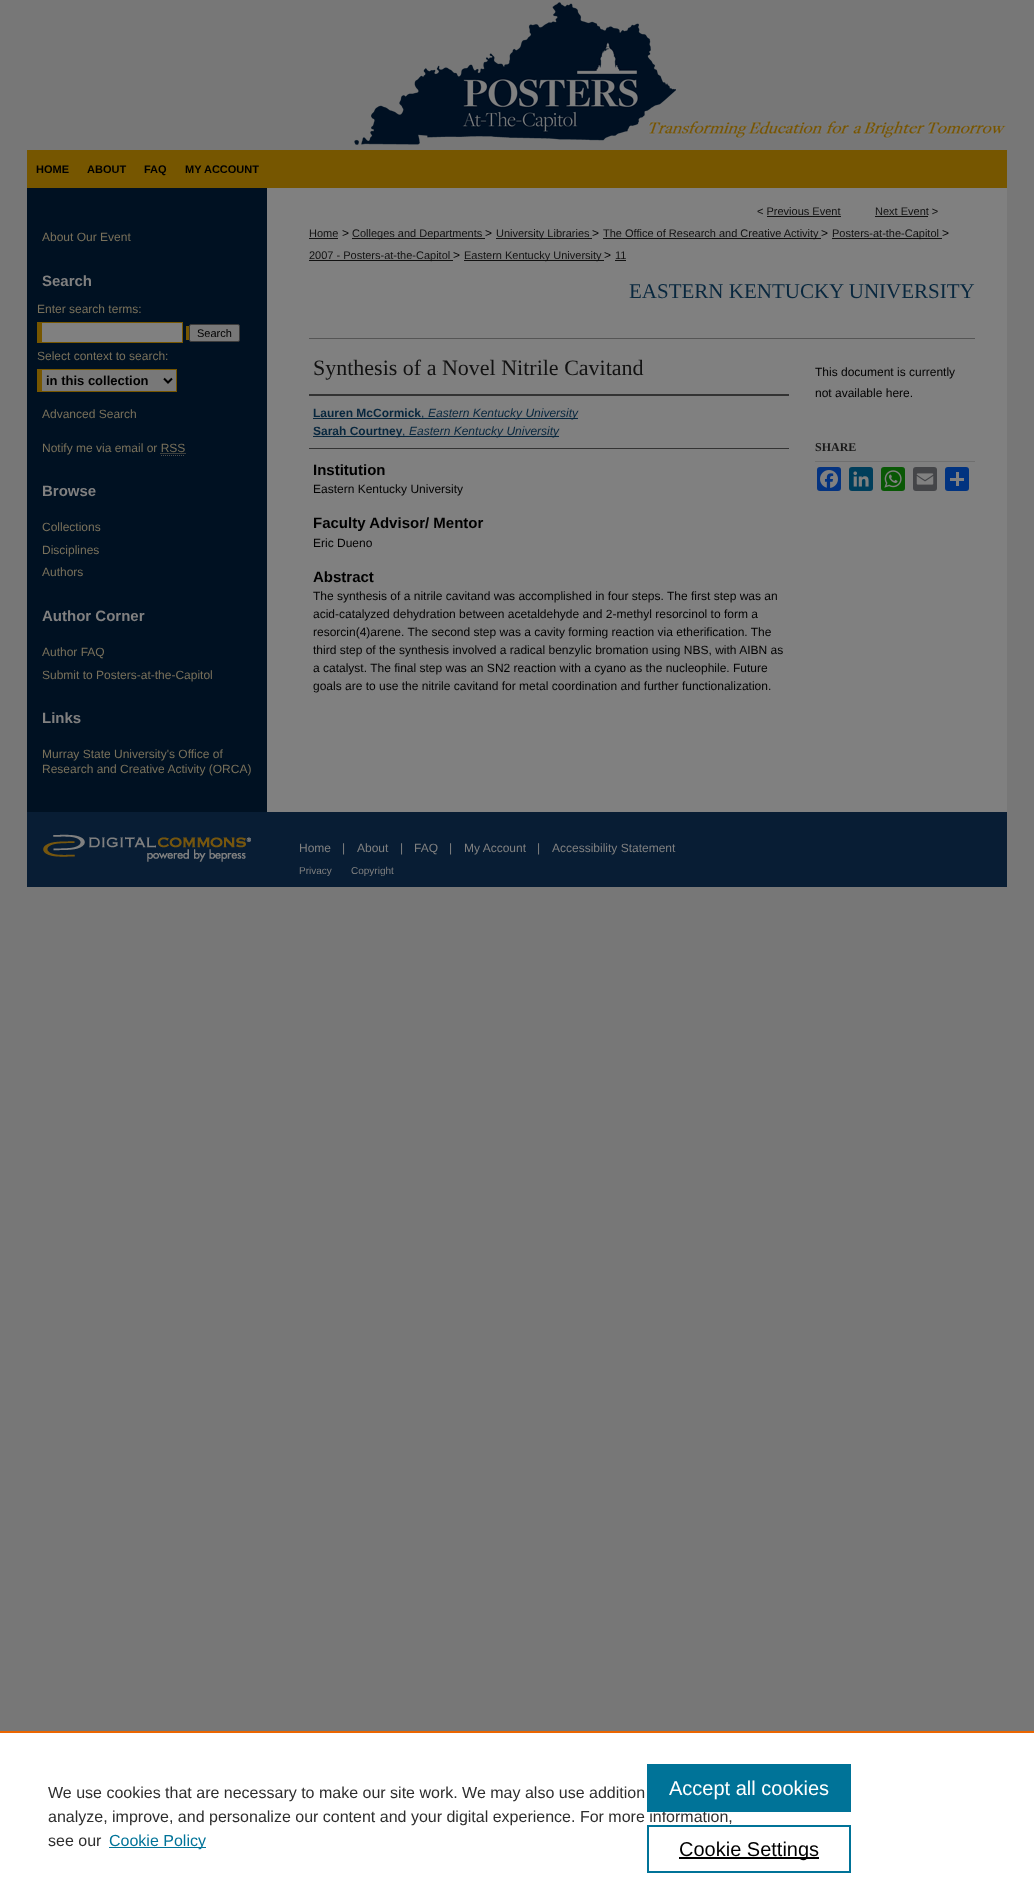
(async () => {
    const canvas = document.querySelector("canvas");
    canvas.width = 1034;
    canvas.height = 1901;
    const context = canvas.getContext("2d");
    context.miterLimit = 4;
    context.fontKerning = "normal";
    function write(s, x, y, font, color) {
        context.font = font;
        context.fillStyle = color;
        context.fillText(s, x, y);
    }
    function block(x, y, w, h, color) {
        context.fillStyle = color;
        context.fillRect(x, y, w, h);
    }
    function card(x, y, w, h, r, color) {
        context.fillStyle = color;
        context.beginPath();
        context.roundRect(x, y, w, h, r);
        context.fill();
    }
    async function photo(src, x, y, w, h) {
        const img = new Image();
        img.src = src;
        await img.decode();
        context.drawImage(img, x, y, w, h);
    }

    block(0, 0, 1034, 1901, "rgb(119, 119, 119)");
    await photo("media/1.png", 354, 2, 653, 143);
    block(27, 150, 980, 38, "rgb(118, 86, 0)");
    write("HOME", 36, 173, "bold 11px Liberation Sans", "rgb(0, 0, 0)");
    write("ABOUT", 87, 173, "bold 11px Liberation Sans", "rgb(0, 0, 0)");
    write("FAQ", 144, 173, "bold 11px Liberation Sans", "rgb(0, 0, 0)");
    write("MY ACCOUNT", 185, 173, "bold 11px Liberation Sans", "rgb(0, 0, 0)");
    block(27, 188, 240, 624, "rgb(0, 17, 34)");
    block(267, 188, 740, 624, "rgb(128, 128, 128)");
    write("About Our Event", 42, 241, "12px Liberation Sans", "rgb(121, 113, 91)");
    write("Search", 42, 286, "bold 15px Liberation Sans", "rgb(128, 128, 128)");
    write("Enter search terms:", 37, 313, "12px Liberation Sans", "rgb(121, 113, 91)");
    block(37, 322, 146, 21, "rgb(118, 86, 0)");
    block(186, 326, 3, 14, "rgb(118, 86, 0)");
    block(42, 323, 140, 19, "rgb(128, 128, 128)");
    context.fillStyle = "rgb(120, 120, 120)";
    context.beginPath();
    context.roundRect(189.5, 324.5, 50, 17, 1.5);
    context.fill();
    context.strokeStyle = "rgb(59, 59, 59)";
    context.stroke();
    write("Search", 197, 337, "11px Liberation Sans", "rgb(0, 0, 0)");
    write("Select context to search:", 37, 360, "12px Liberation Sans", "rgb(121, 113, 91)");
    block(42, 370, 134, 21, "rgb(120, 120, 120)");
    block(37, 369, 140, 1, "rgb(118, 86, 0)");
    block(176, 369, 1, 23, "rgb(118, 86, 0)");
    block(37, 391, 140, 1, "rgb(118, 86, 0)");
    block(37, 369, 5, 23, "rgb(118, 86, 0)");
    context.beginPath();
    context.moveTo(164, 378.5);
    context.lineTo(168, 382.5);
    context.lineTo(172, 378.5);
    context.strokeStyle = "rgb(0, 0, 0)";
    context.lineWidth = 2;
    context.stroke();
    write("in this collection", 46, 385, "bold 13px Liberation Sans", "rgb(0, 0, 0)");
    write("Advanced Search", 42, 418, "12px Liberation Sans", "rgb(121, 113, 91)");
    write("Notify me via email or RSS", 42, 452, "12px Liberation Sans", "rgb(121, 113, 91)");
    context.beginPath();
    context.moveTo(160.5, 453.5);
    context.lineTo(185.5, 453.5);
    context.strokeStyle = "rgb(121, 113, 91)";
    context.lineWidth = 1;
    context.setLineDash([1, 1]);
    context.stroke();
    context.beginPath();
    context.moveTo(161, 455.5);
    context.lineTo(185, 455.5);
    context.strokeStyle = "rgb(77, 77, 77)";
    context.stroke();
    write("Browse", 42, 496, "bold 15px Liberation Sans", "rgb(128, 128, 128)");
    write("Collections", 42, 531, "12px Liberation Sans", "rgb(121, 113, 91)");
    write("Disciplines", 42, 554, "12px Liberation Sans", "rgb(121, 113, 91)");
    write("Authors", 42, 576, "12px Liberation Sans", "rgb(121, 113, 91)");
    write("Author Corner", 42, 621, "bold 15px Liberation Sans", "rgb(128, 128, 128)");
    write("Author FAQ", 42, 656, "12px Liberation Sans", "rgb(121, 113, 91)");
    write("Submit to Posters-at-the-Capitol", 42, 679, "12px Liberation Sans", "rgb(121, 113, 91)");
    write("Links", 42, 723, "bold 15px Liberation Sans", "rgb(128, 128, 128)");
    write("Murray State University's Office of", 42, 758, "12px Liberation Sans", "rgb(121, 113, 91)");
    write("Research and Creative Activity (ORCA)", 42, 773, "12px Liberation Sans", "rgb(121, 113, 91)");
    write("< Previous Event", 757, 215, "11px Liberation Sans", "rgb(17, 17, 17)");
    block(767, 216, 74, 1, "rgb(17, 17, 17)");
    write("Next Event >", 875, 215, "11px Liberation Sans", "rgb(17, 17, 17)");
    block(875, 216, 53, 1, "rgb(17, 17, 17)");
    write("Home", 309, 237, "11px Liberation Sans", "rgb(17, 17, 17)");
    block(309, 238, 29, 1, "rgb(17, 17, 17)");
    write(">", 342, 237, "12px Liberation Sans", "rgb(0, 0, 0)");
    block(352, 238, 133, 1, "rgb(17, 17, 17)");
    write("Colleges and Departments", 352, 237, "11px Liberation Sans", "rgb(17, 17, 17)");
    write(">", 485, 237, "12px Liberation Sans", "rgb(0, 0, 0)");
    block(496, 238, 96, 1, "rgb(17, 17, 17)");
    write("University Libraries", 496, 237, "11px Liberation Sans", "rgb(17, 17, 17)");
    write(">", 592, 237, "12px Liberation Sans", "rgb(0, 0, 0)");
    block(603, 238, 218, 1, "rgb(17, 17, 17)");
    write("The Office of Research and Creative Activity", 603, 237, "11px Liberation Sans", "rgb(17, 17, 17)");
    write(">", 821, 237, "12px Liberation Sans", "rgb(0, 0, 0)");
    block(832, 238, 110, 1, "rgb(17, 17, 17)");
    write("Posters-at-the-Capitol", 832, 237, "11px Liberation Sans", "rgb(17, 17, 17)");
    write(">", 942, 237, "12px Liberation Sans", "rgb(0, 0, 0)");
    block(309, 260, 144, 1, "rgb(17, 17, 17)");
    write("2007 - Posters-at-the-Capitol", 309, 259, "11px Liberation Sans", "rgb(17, 17, 17)");
    write(">", 453, 259, "12px Liberation Sans", "rgb(0, 0, 0)");
    block(464, 260, 140, 1, "rgb(17, 17, 17)");
    write("Eastern Kentucky University", 464, 259, "11px Liberation Sans", "rgb(17, 17, 17)");
    write(">", 604, 259, "12px Liberation Sans", "rgb(0, 0, 0)");
    write("11", 615, 259, "11px Liberation Sans", "rgb(17, 17, 17)");
    block(615, 260, 11, 1, "rgb(17, 17, 17)");
    write("EASTERN KENTUCKY UNIVERSITY", 629, 298, "21px Liberation Serif", "rgb(8, 39, 62)");
    block(309, 338, 666, 1, "rgb(85, 85, 85)");
    write("Synthesis of a Novel Nitrile Cavitand", 313, 375, "22px Liberation Serif", "rgb(17, 17, 17)");
    block(309, 394, 480, 2, "rgb(51, 51, 51)");
    block(309, 448, 480, 1, "rgb(51, 51, 51)");
    write("Lauren McCormick", 313, 417, "bold 12px Liberation Sans", "rgb(8, 39, 62)");
    block(313, 418, 265, 1, "rgb(8, 39, 62)");
    write(",", 421, 417, "12px Liberation Sans", "rgb(8, 39, 62)");
    write("Eastern Kentucky University", 428, 417, "italic 12px Liberation Sans", "rgb(8, 39, 62)");
    block(313, 436, 89, 1, "rgb(8, 39, 62)");
    write("Sarah Courtney", 313, 435, "bold 12px Liberation Sans", "rgb(8, 39, 62)");
    block(402, 436, 157, 1, "rgb(8, 39, 62)");
    write(",", 402, 435, "12px Liberation Sans", "rgb(8, 39, 62)");
    write("Eastern Kentucky University", 409, 435, "italic 12px Liberation Sans", "rgb(8, 39, 62)");
    write("Institution", 313, 475, "bold 15px Liberation Sans", "rgb(0, 0, 0)");
    write("Eastern Kentucky University", 313, 493, "12px Liberation Sans", "rgb(0, 0, 0)");
    write("Faculty Advisor/ Mentor", 313, 528, "bold 15px Liberation Sans", "rgb(0, 0, 0)");
    write("Eric Dueno", 313, 547, "12px Liberation Sans", "rgb(0, 0, 0)");
    write("Abstract", 313, 582, "bold 15px Liberation Sans", "rgb(0, 0, 0)");
    write("The synthesis of a nitrile cavitand was accomplished in four steps. The first step was an", 313, 600, "12px Liberation Sans", "rgb(0, 0, 0)");
    write("acid-catalyzed dehydration between acetaldehyde and 2-methyl resorcinol to form a", 313, 618, "12px Liberation Sans", "rgb(0, 0, 0)");
    write("resorcin(4)arene. The second step was a cavity forming reaction via etherification. The", 313, 636, "12px Liberation Sans", "rgb(0, 0, 0)");
    write("third step of the synthesis involved a radical benzylic bromation using NBS, with AIBN as", 313, 654, "12px Liberation Sans", "rgb(0, 0, 0)");
    write("a catalyst. The final step was an SN2 reaction with a cyano as the nucleophile. Future", 313, 672, "12px Liberation Sans", "rgb(0, 0, 0)");
    write("goals are to use the nitrile cavitand for metal coordination and further functionalization.", 313, 690, "12px Liberation Sans", "rgb(0, 0, 0)");
    write("This document is currently", 815, 376, "12px Liberation Sans", "rgb(0, 0, 0)");
    write("not available here.", 815, 397, "12px Liberation Sans", "rgb(0, 0, 0)");
    block(815, 461, 160, 1, "rgb(111, 111, 111)");
    write("SHARE", 815, 451, "bold 12px Liberation Serif", "rgb(26, 26, 26)");
    card(817, 467, 24, 24, 3, "rgb(4, 51, 128)");
    await photo("media/2.png", 820, 470, 18, 18);
    card(849, 467, 24, 24, 3, "rgb(0, 62, 91)");
    await photo("media/3.png", 853, 471, 16, 16);
    card(881, 467, 24, 24, 3, "rgb(9, 88, 5)");
    await photo("media/4.png", 884, 470, 18, 18);
    card(913, 467, 24, 24, 3, "rgb(68, 69, 72)");
    await photo("media/5.png", 916, 473, 18, 12);
    card(945, 467, 24, 24, 3, "rgb(1, 51, 128)");
    block(956, 472, 3, 14, "rgb(128, 128, 128)");
    block(950, 478, 14, 3, "rgb(128, 128, 128)");
    block(27, 812, 980, 75, "rgb(8, 29, 52)");
    await photo("media/6.png", 43, 834, 208, 28);
    write("Home", 299, 852, "12px Liberation Sans", "rgb(128, 128, 128)");
    write("|", 342, 852, "12px Liberation Sans", "rgb(128, 128, 128)");
    write("About", 357, 852, "12px Liberation Sans", "rgb(128, 128, 128)");
    write("|", 400, 852, "12px Liberation Sans", "rgb(128, 128, 128)");
    write("FAQ", 414, 852, "12px Liberation Sans", "rgb(128, 128, 128)");
    write("|", 449, 852, "12px Liberation Sans", "rgb(128, 128, 128)");
    write("My Account", 464, 852, "12px Liberation Sans", "rgb(128, 128, 128)");
    write("|", 537, 852, "12px Liberation Sans", "rgb(128, 128, 128)");
    write("Accessibility Statement", 552, 852, "12px Liberation Sans", "rgb(128, 128, 128)");
    write("Privacy", 299, 874, "10px Liberation Sans", "rgb(128, 128, 128)");
    write("Copyright", 351, 874, "10px Liberation Sans", "rgb(128, 128, 128)");
    block(0, 1733, 1034, 168, "rgb(255, 255, 255)");
    block(0, 1731, 1034, 2, "rgb(235, 101, 0)");
    write("We use cookies that are necessary to make our site work. We may also use addition", 48, 1798, "16px Liberation Sans", "rgb(46, 46, 46)");
    write("analyze, improve, and personalize our content and your digital experience. For more information,", 48, 1822, "16px Liberation Sans", "rgb(46, 46, 46)");
    write("see our", 48, 1846, "16px Liberation Sans", "rgb(46, 46, 46)");
    block(109, 1847, 97, 1, "rgb(0, 115, 152)");
    write("Cookie Policy", 109, 1846, "16px Liberation Sans", "rgb(0, 115, 152)");
    block(647, 1764, 204, 48, "rgb(0, 115, 152)");
    write("Accept all cookies", 669, 1795, "20px Liberation Sans", "rgb(255, 255, 255)");
    context.strokeStyle = "rgb(0, 115, 152)";
    context.lineWidth = 2;
    context.setLineDash([]);
    context.strokeRect(648, 1826, 202, 46);
    block(679, 1857, 140, 2, "rgb(0, 0, 0)");
    write("Cookie Settings", 679, 1856, "20px Liberation Sans", "rgb(0, 0, 0)");
})();
